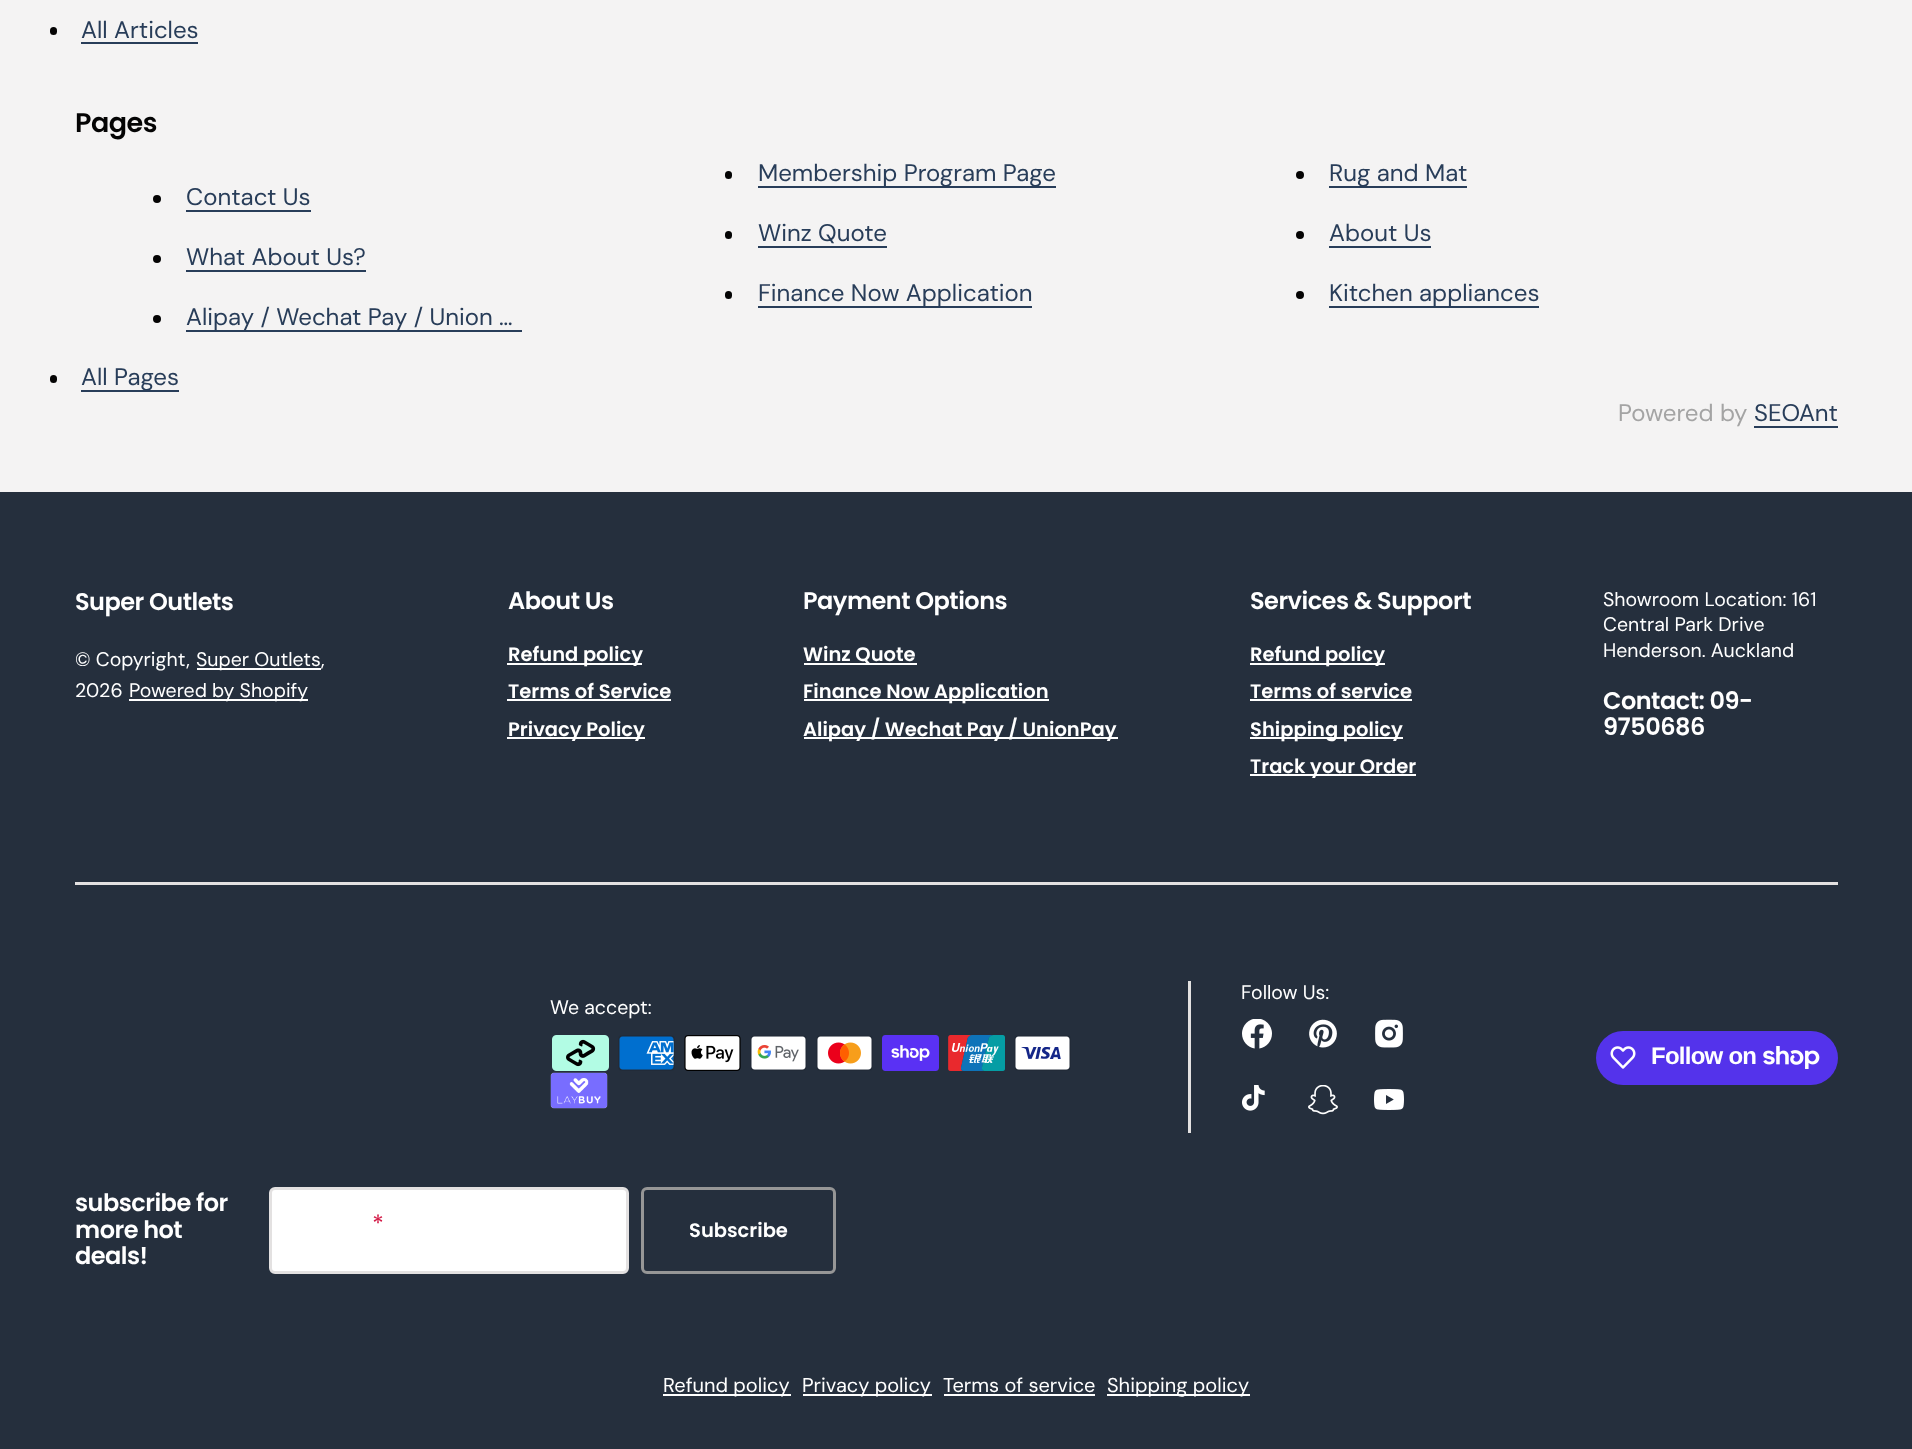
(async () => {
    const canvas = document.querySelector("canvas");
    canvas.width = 1912;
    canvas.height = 1449;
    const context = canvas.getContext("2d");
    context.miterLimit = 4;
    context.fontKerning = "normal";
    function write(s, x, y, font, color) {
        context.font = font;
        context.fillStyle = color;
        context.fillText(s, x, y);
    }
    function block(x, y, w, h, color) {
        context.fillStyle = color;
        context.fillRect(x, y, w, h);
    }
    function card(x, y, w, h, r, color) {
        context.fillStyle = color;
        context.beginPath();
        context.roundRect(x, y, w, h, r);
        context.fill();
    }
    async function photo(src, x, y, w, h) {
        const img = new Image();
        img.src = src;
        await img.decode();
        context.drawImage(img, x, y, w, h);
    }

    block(0, 0, 1912, 1449, "rgb(244, 243, 243)");
    card(50, 27, 7, 8, 3.5, "rgb(4, 4, 4)");
    write("All Articles", 81, 38, "24px DM Sans", "rgb(40, 61, 89)");
    block(81, 42, 117, 2, "rgb(40, 61, 89)");
    context.letterSpacing = "-0.5px";
    write("Pages", 75, 132, "600 27px Poppins", "rgb(4, 4, 4)");
    card(725, 171, 7, 8, 3.5, "rgb(4, 4, 4)");
    block(758, 186, 298, 2, "rgb(40, 61, 89)");
    context.letterSpacing = "0px";
    write("Membership Program Page", 758, 181, "24px DM Sans", "rgb(40, 61, 89)");
    context.fillStyle = "rgb(4, 4, 4)";
    context.beginPath();
    context.arc(1300, 175, 4, 0, Math.PI * 2);
    context.fill();
    block(1329, 186, 138, 2, "rgb(40, 61, 89)");
    write("Rug and Mat", 1329, 181, "24px DM Sans", "rgb(40, 61, 89)");
    context.fillStyle = "rgb(4, 4, 4)";
    context.beginPath();
    context.arc(157, 199, 4, 0, Math.PI * 2);
    context.fill();
    write("Contact Us", 186, 205, "24px DM Sans", "rgb(40, 61, 89)");
    block(186, 210, 125, 2, "rgb(40, 61, 89)");
    card(725, 231, 7, 8, 3.5, "rgb(4, 4, 4)");
    write("Winz Quote", 758, 241, "24px DM Sans", "rgb(40, 61, 89)");
    block(758, 246, 129, 2, "rgb(40, 61, 89)");
    context.fillStyle = "rgb(4, 4, 4)";
    context.beginPath();
    context.arc(1300, 235, 4, 0, Math.PI * 2);
    context.fill();
    write("About Us", 1329, 241, "24px DM Sans", "rgb(40, 61, 89)");
    block(1329, 246, 102, 2, "rgb(40, 61, 89)");
    context.fillStyle = "rgb(4, 4, 4)";
    context.beginPath();
    context.arc(157, 259, 4, 0, Math.PI * 2);
    context.fill();
    write("What About Us?", 186, 265, "24px DM Sans", "rgb(40, 61, 89)");
    block(186, 270, 180, 2, "rgb(40, 61, 89)");
    card(725, 291, 7, 8, 3.5, "rgb(4, 4, 4)");
    block(758, 306, 274, 2, "rgb(40, 61, 89)");
    write("Finance Now Application", 758, 301, "24px DM Sans", "rgb(40, 61, 89)");
    context.fillStyle = "rgb(4, 4, 4)";
    context.beginPath();
    context.arc(1300, 295, 4, 0, Math.PI * 2);
    context.fill();
    block(1329, 306, 210, 2, "rgb(40, 61, 89)");
    write("Kitchen appliances", 1329, 301, "24px DM Sans", "rgb(40, 61, 89)");
    context.fillStyle = "rgb(4, 4, 4)";
    context.beginPath();
    context.arc(157, 319, 4, 0, Math.PI * 2);
    context.fill();
    block(186, 330, 336, 2, "rgb(40, 61, 89)");
    write("Alipay / Wechat Pay / Union …", 186, 325, "24px DM Sans", "rgb(40, 61, 89)");
    card(50, 375, 7, 8, 3.5, "rgb(4, 4, 4)");
    block(81, 390, 98, 2, "rgb(40, 61, 89)");
    write("All Pages", 81, 385, "24px DM Sans", "rgb(40, 61, 89)");
    write("Powered by", 1618, 421, "24px DM Sans", "rgb(164, 164, 164)");
    write("SEOAnt", 1754, 421, "24px DM Sans", "rgb(40, 61, 89)");
    block(1754, 426, 84, 2, "rgb(40, 61, 89)");
    block(0, 492, 1912, 957, "rgb(37, 47, 61)");
    context.letterSpacing = "-0.5px";
    write("Super Outlets", 75, 610, "600 24px Poppins", "rgb(255, 255, 255)");
    context.letterSpacing = "0px";
    write("© Copyright,", 75, 666, "19.5px 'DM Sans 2'", "rgb(255, 255, 255)");
    block(197, 668, 124, 2, "rgb(255, 255, 255)");
    write("Super Outlets", 196, 666, "19.5px 'DM Sans 2'", "rgb(255, 255, 255)");
    write(",", 321, 666, "19.5px 'DM Sans 2'", "rgb(255, 255, 255)");
    write("2026", 75, 697, "19.5px 'DM Sans 2'", "rgb(255, 255, 255)");
    block(129, 699, 179, 2, "rgb(255, 255, 255)");
    write("Powered by Shopify", 129, 697, "19.5px 'DM Sans 2'", "rgb(255, 255, 255)");
    context.letterSpacing = "-0.5px";
    write("About Us", 508, 609, "600 24px Poppins", "rgb(255, 255, 255)");
    block(507, 663, 135, 2, "rgb(255, 255, 255)");
    context.letterSpacing = "0px";
    write("Refund policy", 508, 661, "600 19.5px Poppins", "rgb(255, 255, 255)");
    write("Terms of Service", 508, 698, "600 19.5px Poppins", "rgb(255, 255, 255)");
    block(507, 699, 164, 2, "rgb(255, 255, 255)");
    block(507, 737, 138, 2, "rgb(255, 255, 255)");
    write("Privacy Policy", 508, 736, "600 19.5px Poppins", "rgb(255, 255, 255)");
    context.letterSpacing = "-0.5px";
    write("Payment Options", 803, 609, "600 24px Poppins", "rgb(255, 255, 255)");
    block(804, 663, 113, 2, "rgb(255, 255, 255)");
    context.letterSpacing = "0px";
    write("Winz Quote", 803, 661, "600 19.5px Poppins", "rgb(255, 255, 255)");
    block(804, 699, 245, 2, "rgb(255, 255, 255)");
    write("Finance Now Application", 803, 698, "600 19.5px Poppins", "rgb(255, 255, 255)");
    block(804, 737, 314, 2, "rgb(255, 255, 255)");
    write("Alipay / Wechat Pay / UnionPay", 803, 736, "600 19.5px Poppins", "rgb(255, 255, 255)");
    context.letterSpacing = "-0.5px";
    write("Services & Support", 1250, 609, "600 24px Poppins", "rgb(255, 255, 255)");
    block(1250, 663, 135, 2, "rgb(255, 255, 255)");
    context.letterSpacing = "0px";
    write("Refund policy", 1250, 661, "600 19.5px Poppins", "rgb(255, 255, 255)");
    write("Terms of service", 1250, 698, "600 19.5px Poppins", "rgb(255, 255, 255)");
    block(1250, 699, 162, 2, "rgb(255, 255, 255)");
    block(1250, 737, 153, 2, "rgb(255, 255, 255)");
    write("Shipping policy", 1250, 736, "600 19.5px Poppins", "rgb(255, 255, 255)");
    block(1250, 774, 166, 2, "rgb(255, 255, 255)");
    write("Track your Order", 1250, 773, "600 19.5px Poppins", "rgb(255, 255, 255)");
    write("Showroom Location: 161", 1603, 606, "19.5px 'DM Sans 2'", "rgb(255, 255, 255)");
    write("Central Park Drive", 1603, 631, "19.5px 'DM Sans 2'", "rgb(255, 255, 255)");
    write("Henderson. Auckland", 1603, 657, "19.5px 'DM Sans 2'", "rgb(255, 255, 255)");
    context.letterSpacing = "-0.5px";
    write("Contact: 09-", 1603, 709, "600 24px Poppins", "rgb(255, 255, 255)");
    write("9750686", 1603, 735, "600 24px Poppins", "rgb(255, 255, 255)");
    block(75, 882, 1763, 3, "rgb(227, 225, 225)");
    block(1188, 981, 3, 152, "rgb(227, 225, 225)");
    context.letterSpacing = "0px";
    write("Follow Us:", 1241, 999, "19.5px 'DM Sans 2'", "rgb(255, 255, 255)");
    await photo("media/1.png", 1242, 1019, 30, 30);
    await photo("media/2.png", 1309, 1019, 28, 29);
    await photo("media/3.png", 1375, 1019, 28, 29);
    await photo("media/4.png", 1242, 1085, 23, 26);
    await photo("media/5.png", 1308, 1085, 30, 30);
    await photo("media/6.png", 1374, 1089, 30, 21);
    write("We accept:", 550, 1014, "19.5px 'DM Sans 2'", "rgb(255, 255, 255)");
    await photo("media/7.png", 552, 1035, 57, 36);
    await photo("media/8.png", 618, 1035, 57, 36);
    await photo("media/9.png", 684, 1035, 57, 36);
    await photo("media/10.png", 750, 1035, 57, 36);
    await photo("media/11.png", 816, 1035, 57, 36);
    await photo("media/12.png", 882, 1035, 57, 36);
    await photo("media/13.png", 948, 1035, 57, 36);
    await photo("media/14.png", 1014, 1035, 57, 36);
    await photo("media/15.png", 550, 1072, 58, 37);
    card(1596, 1031, 242, 54, 27, "rgb(84, 51, 235)");
    await photo("media/16.png", 1610, 1046, 26, 23);
    context.letterSpacing = "-0.75px";
    write("Follow on", 1651, 1064, "bold 24px Liberation Sans", "rgb(255, 255, 255)");
    await photo("media/17.png", 1763, 1046, 57, 23);
    context.letterSpacing = "-0.5px";
    write("subscribe for", 75, 1211, "600 24px Poppins", "rgb(255, 255, 255)");
    write("more hot", 75, 1238, "600 24px Poppins", "rgb(255, 255, 255)");
    write("deals!", 75, 1264, "600 24px Poppins", "rgb(255, 255, 255)");
    context.beginPath();
    context.roundRect(270.5, 1188.5, 357, 84, 4.5);
    context.fill();
    context.strokeStyle = "rgb(227, 225, 225)";
    context.lineWidth = 3;
    context.stroke();
    context.letterSpacing = "0px";
    write("*", 372, 1232, "500 24px DM Sans", "rgb(212, 31, 75)");
    context.beginPath();
    context.roundRect(642.5, 1188.5, 192, 84, 4.5);
    context.strokeStyle = "rgb(150, 150, 150)";
    context.stroke();
    write("Subscribe", 689, 1237, "600 19.5px Poppins", "rgb(255, 255, 255)");
    block(663, 1394, 128, 2, "rgb(255, 255, 255)");
    write("Refund policy", 663, 1392, "20px 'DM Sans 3'", "rgb(255, 255, 255)");
    block(803, 1394, 129, 2, "rgb(255, 255, 255)");
    write("Privacy policy", 802, 1392, "20px 'DM Sans 3'", "rgb(255, 255, 255)");
    write("Terms of service", 943, 1392, "20px 'DM Sans 3'", "rgb(255, 255, 255)");
    block(944, 1394, 151, 2, "rgb(255, 255, 255)");
    block(1107, 1394, 143, 2, "rgb(255, 255, 255)");
    write("Shipping policy", 1107, 1392, "20px 'DM Sans 3'", "rgb(255, 255, 255)");
})();
